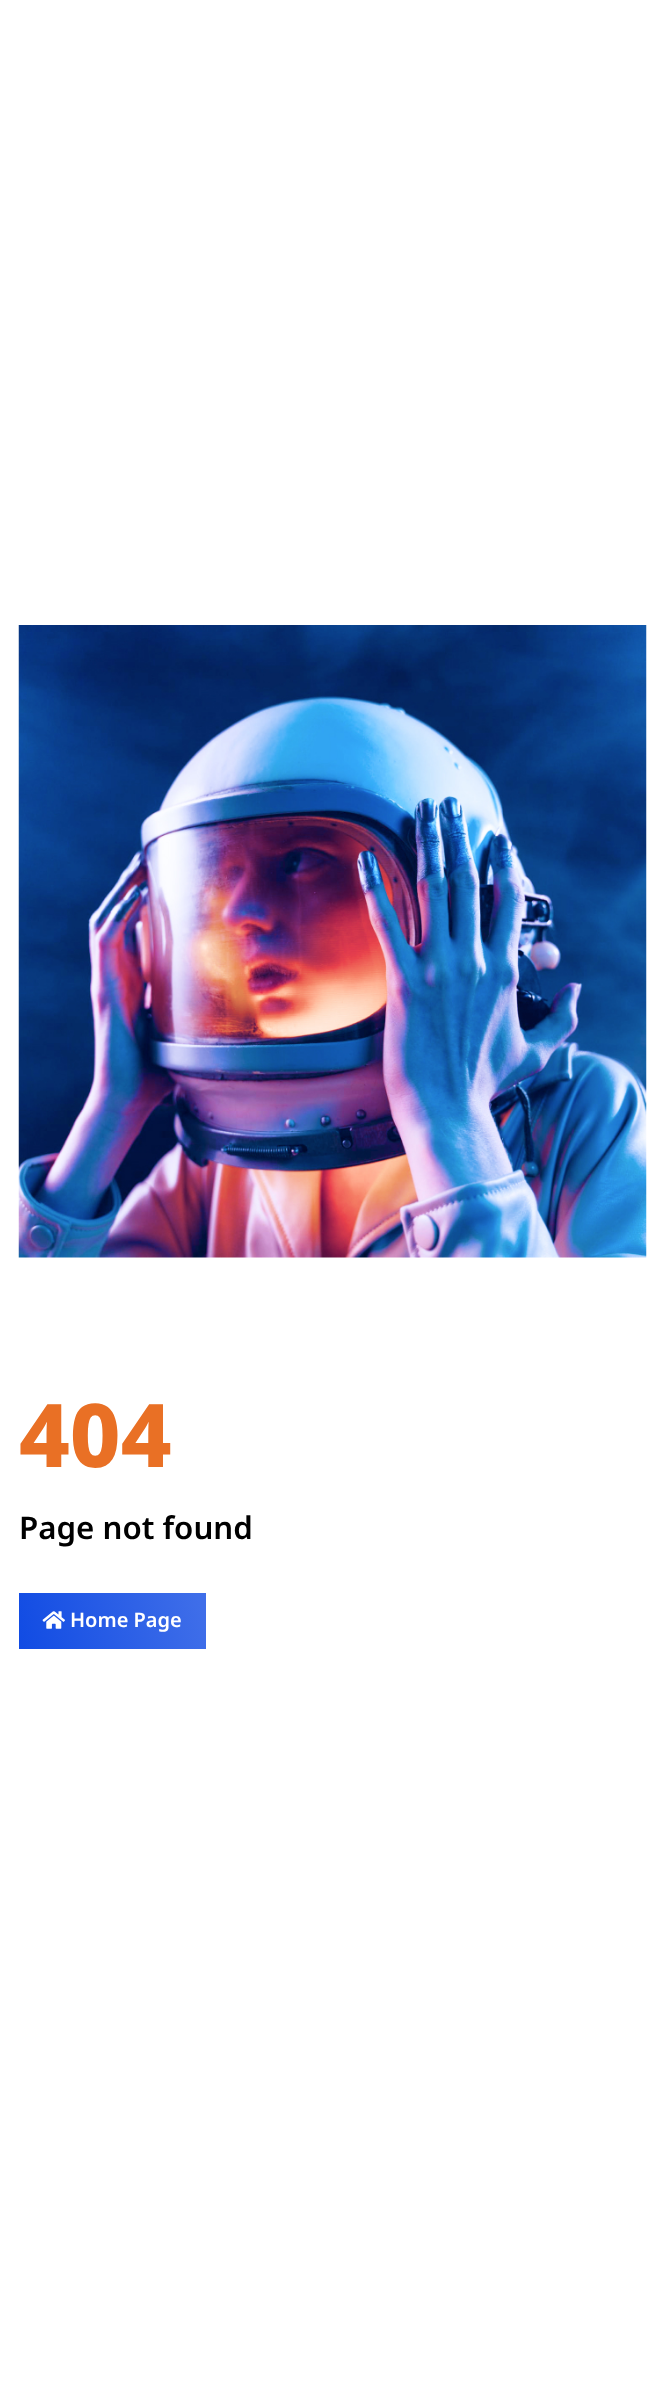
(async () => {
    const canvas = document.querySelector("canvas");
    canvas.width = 664;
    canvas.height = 2398;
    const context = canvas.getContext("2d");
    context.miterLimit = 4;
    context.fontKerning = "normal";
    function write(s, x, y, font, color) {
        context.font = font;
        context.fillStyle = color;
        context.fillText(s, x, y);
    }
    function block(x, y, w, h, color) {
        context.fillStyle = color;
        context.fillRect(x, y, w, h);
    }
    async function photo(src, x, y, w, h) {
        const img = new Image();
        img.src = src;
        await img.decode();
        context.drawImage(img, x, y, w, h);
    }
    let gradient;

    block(0, 0, 664, 2398, "rgb(255, 255, 255)");
    await photo("media/1.png", 18, 625, 629, 633);
    write("404", 19, 1467, "800 88px Noto Sans", "rgb(233, 112, 37)");
    write("Page not found", 19, 1539, "600 31.25px Noto Sans", "rgb(0, 0, 0)");
    gradient = context.createLinearGradient(207, 1596, 12, 1647);
    gradient.addColorStop(0.04, "rgb(63, 110, 233)");
    gradient.addColorStop(1, "rgb(15, 74, 227)");
    context.fillStyle = gradient;
    context.fillRect(19, 1593, 187, 56);
    await photo("media/2.png", 42, 1611, 23, 18);
    write("Home Page", 70, 1627, "600 20px Noto Sans", "rgb(255, 255, 255)");
})();
